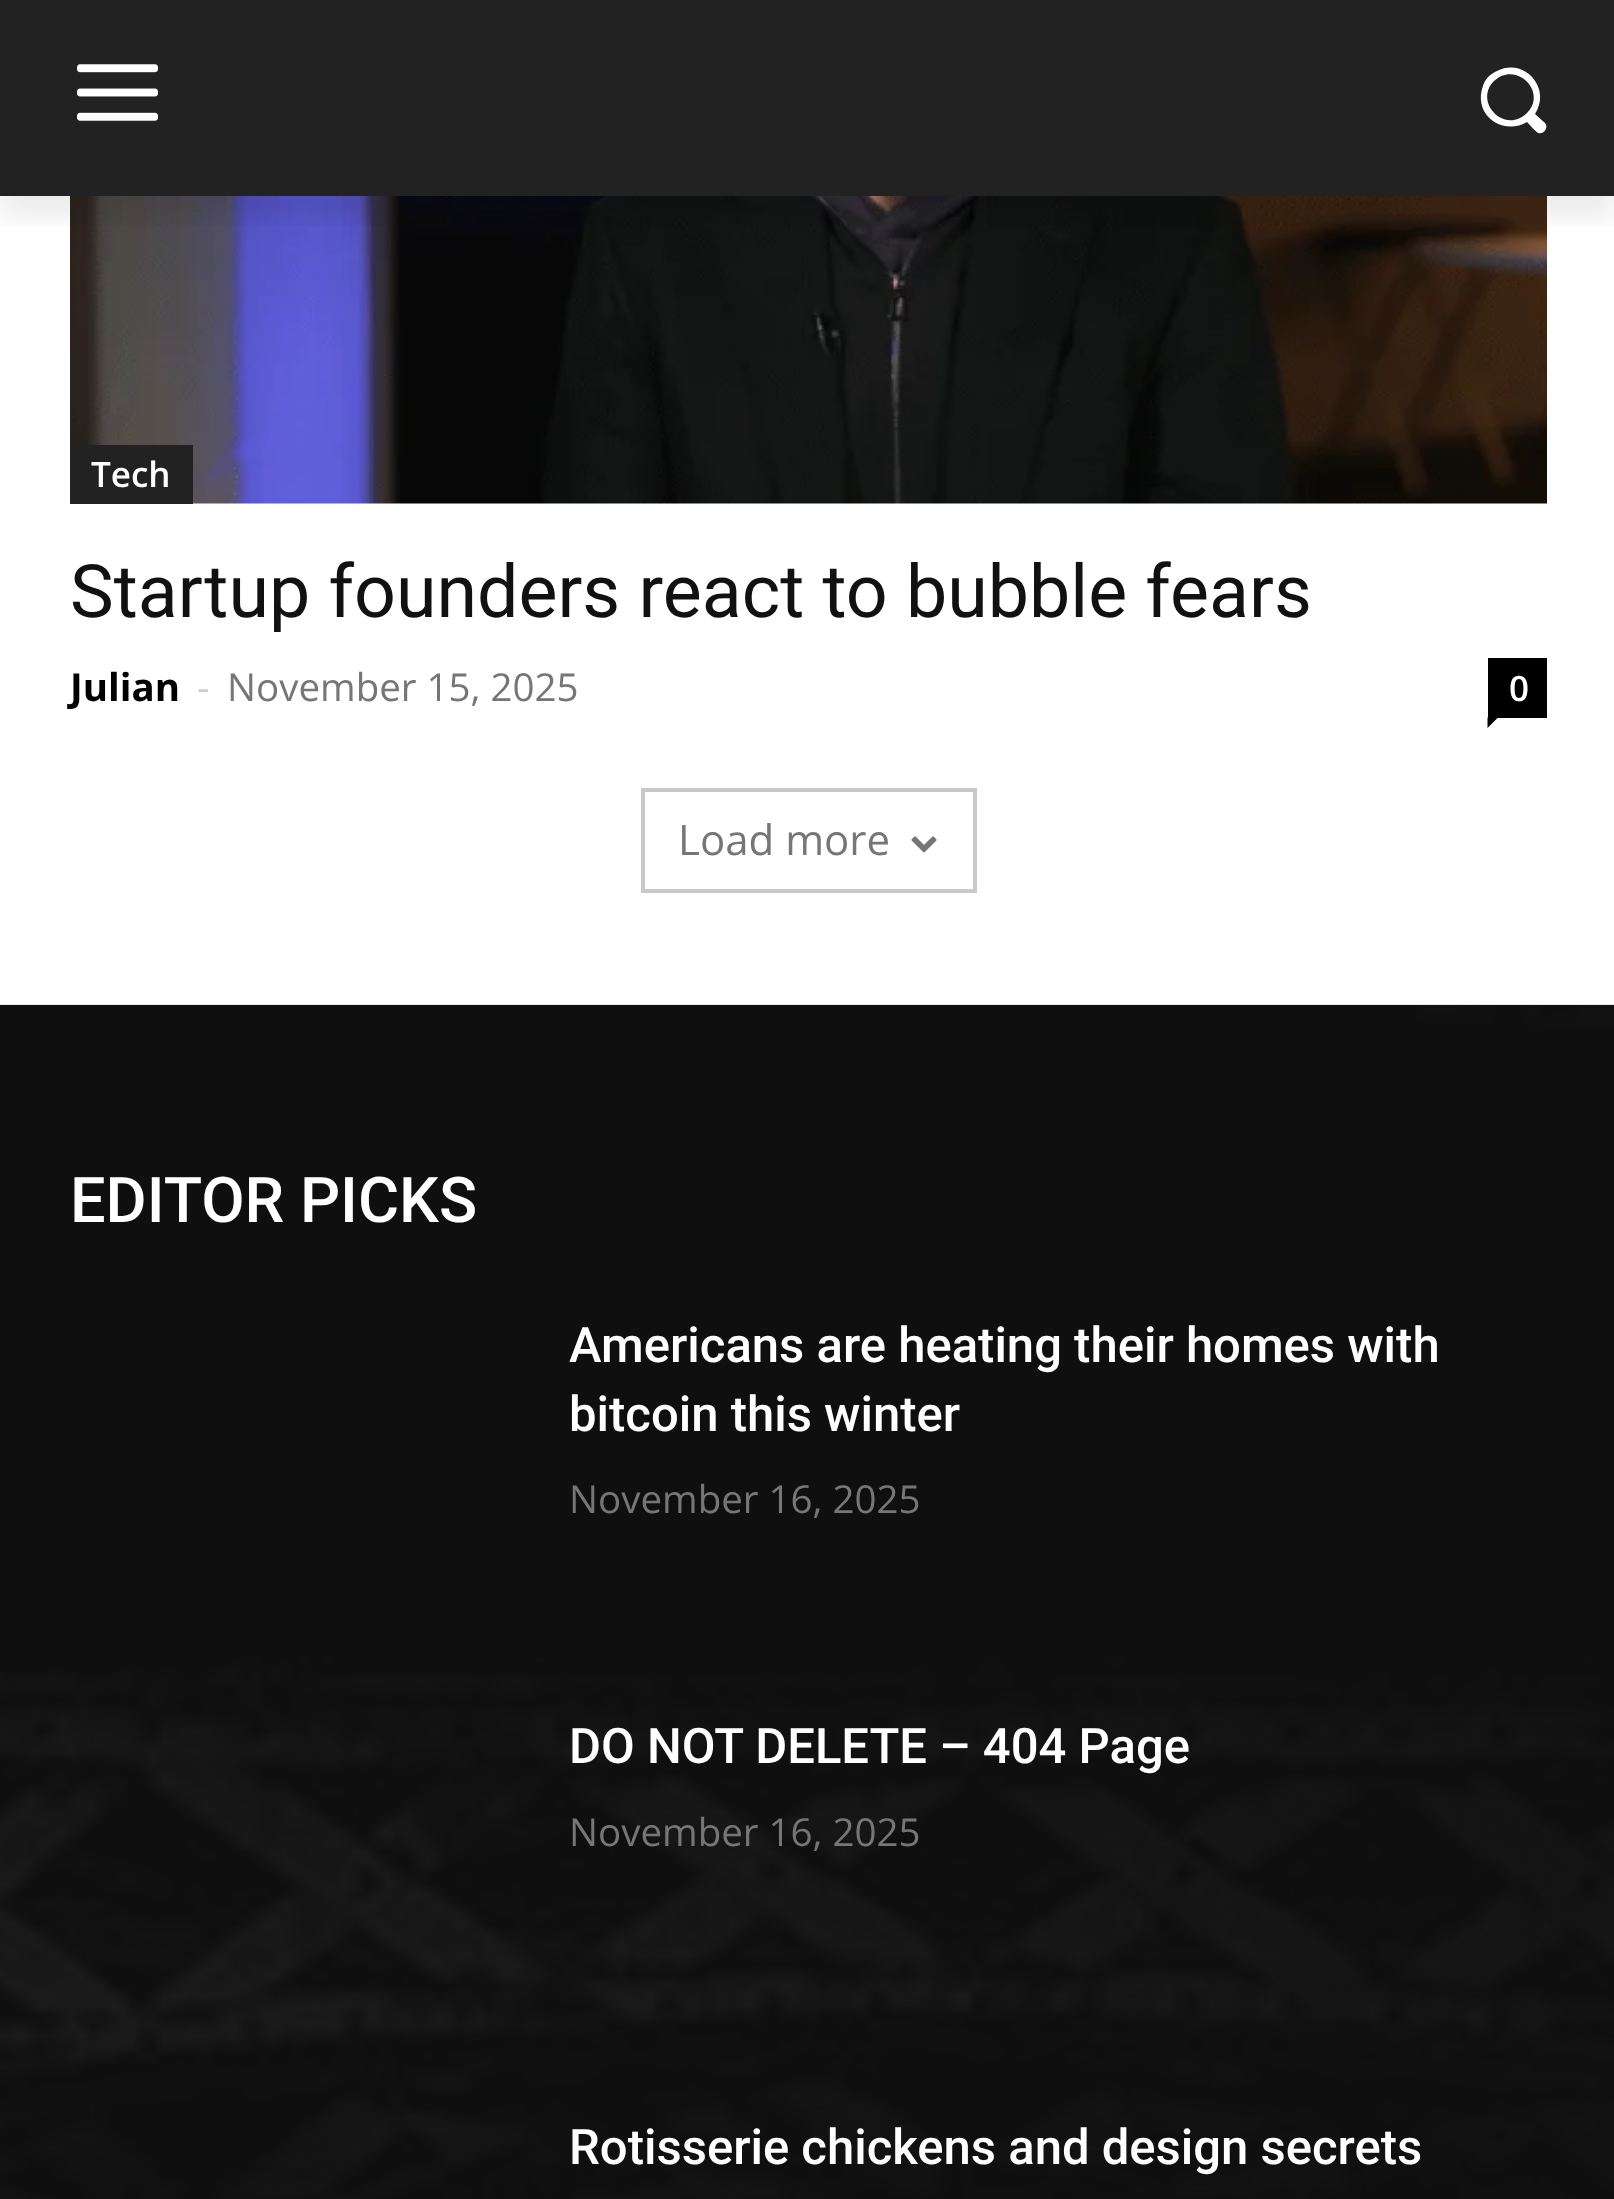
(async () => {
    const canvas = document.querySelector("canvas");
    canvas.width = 1614;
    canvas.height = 2199;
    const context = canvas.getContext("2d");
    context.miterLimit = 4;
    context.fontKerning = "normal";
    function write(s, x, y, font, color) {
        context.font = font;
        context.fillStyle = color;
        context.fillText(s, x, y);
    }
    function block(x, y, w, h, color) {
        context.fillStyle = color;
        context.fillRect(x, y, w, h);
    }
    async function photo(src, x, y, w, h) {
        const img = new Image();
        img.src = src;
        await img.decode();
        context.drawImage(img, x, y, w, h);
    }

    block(0, 0, 1614, 2199, "rgb(255, 255, 255)");
    block(0, 0, 1614, 196, "rgb(34, 34, 34)");
    await photo("media/1.png", 77, 64, 82, 57);
    context.fillStyle = "rgb(255, 255, 255)";
    context.beginPath();
    context.moveTo(1545, 123);
    context.lineTo(1535, 114);
    context.bezierCurveTo(1552, 88, 1524, 57, 1497, 71);
    context.bezierCurveTo(1490, 74, 1485, 79, 1483, 86);
    context.bezierCurveTo(1480, 94, 1480, 103, 1484, 111);
    context.bezierCurveTo(1492, 126, 1512, 131, 1527, 122);
    context.bezierCurveTo(1530, 125, 1535, 131, 1538, 133);
    context.bezierCurveTo(1544, 135, 1549, 127, 1545, 123);
    context.closePath();
    context.moveTo(1527, 113);
    context.bezierCurveTo(1505, 135, 1473, 102, 1494, 81);
    context.bezierCurveTo(1516, 60, 1548, 92, 1527, 113);
    context.closePath();
    context.fill();
    await photo("media/2.png", 70, 196, 1477, 308);
    context.save();
    context.beginPath();
    context.rect(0, 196, 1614, 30);
    context.clip();
    context.fillStyle = "rgba(0, 0, 0, 0.08)";
    context.filter = "blur(14px)";
    context.beginPath();
    context.rect(0, 21, 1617, 196);
    context.fill();
    context.filter = "none";
    context.restore();
    block(70, 445, 123, 59, "rgb(34, 34, 34)");
    write("Tech", 91, 487, "600 35px Open Sans", "rgb(255, 255, 255)");
    write("Startup founders react to bubble fears", 70, 617, "73.5px Roboto", "rgb(17, 17, 17)");
    write("Julian", 70, 701, "bold 38.5px Open Sans", "rgb(0, 0, 0)");
    write("-", 197, 701, "38.5px Open Sans", "rgb(204, 204, 204)");
    write("November 15, 2025", 227, 701, "38.5px Open Sans", "rgb(118, 118, 118)");
    block(1488, 658, 59, 60, "rgb(0, 0, 0)");
    write("0", 1509, 701, "600 35px Open Sans", "rgb(255, 255, 255)");
    context.fillStyle = "rgb(0, 0, 0)";
    context.beginPath();
    context.moveTo(1487.5, 717.5);
    context.lineTo(1498, 717.5);
    context.lineTo(1487.5, 728);
    context.closePath();
    context.fill();
    context.strokeStyle = "rgb(201, 201, 201)";
    context.lineWidth = 4;
    context.strokeRect(643, 790, 332, 101);
    write("Load more", 678, 855, "42px Open Sans", "rgb(118, 118, 118)");
    await photo("media/3.png", 911, 836, 26, 17);
    block(0, 1005, 1614, 1194, "rgb(17, 17, 17)");
    await photo("media/4.png", 0, 1004, 1614, 1195);
    write("EDITOR PICKS", 70, 1222, "500 63px Roboto", "rgb(255, 255, 255)");
    write("Americans are heating their homes with", 569, 1362, "500 49px Roboto", "rgb(255, 255, 255)");
    write("bitcoin this winter", 569, 1431, "500 49px Roboto", "rgb(255, 255, 255)");
    write("November 16, 2025", 569, 1513, "38.5px Open Sans", "rgb(118, 118, 118)");
    write("DO NOT DELETE – 404 Page", 569, 1763, "500 49px Roboto", "rgb(255, 255, 255)");
    write("November 16, 2025", 569, 1846, "38.5px Open Sans", "rgb(118, 118, 118)");
    write("Rotisserie chickens and design secrets", 569, 2164, "500 49px Roboto", "rgb(255, 255, 255)");
})();
